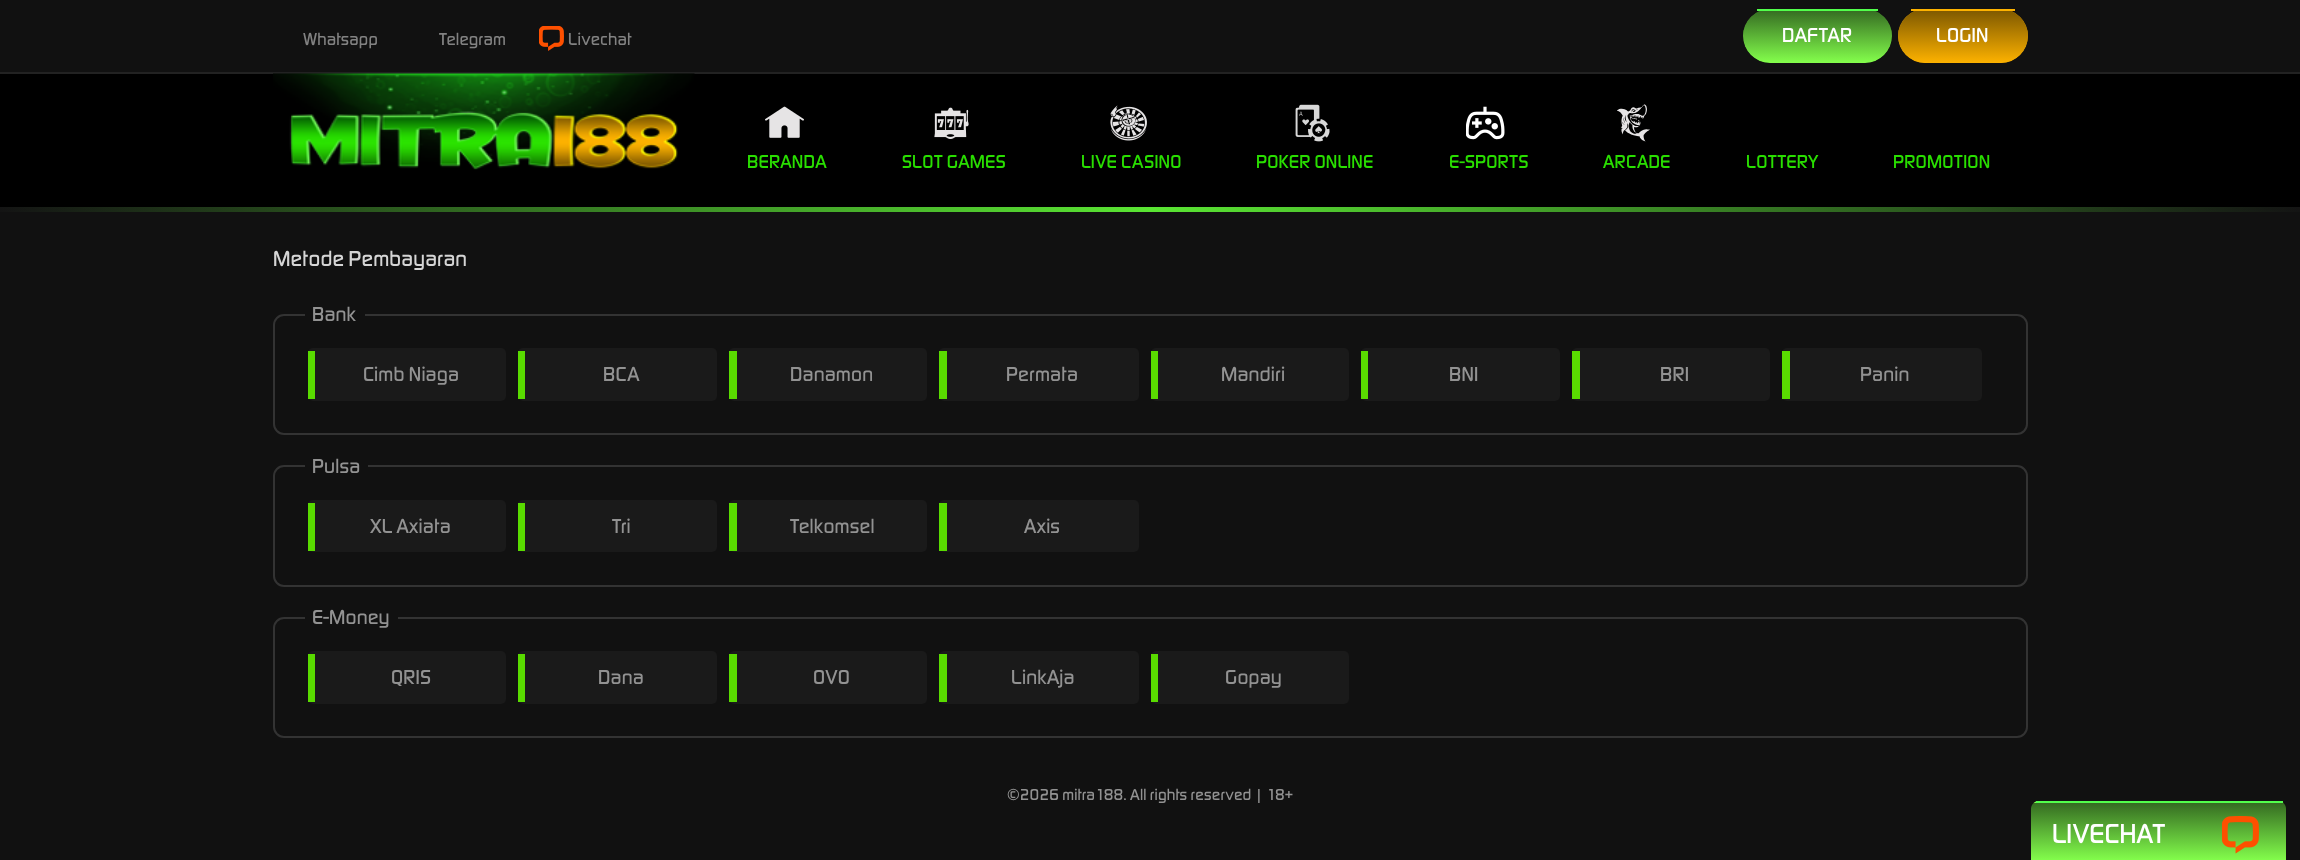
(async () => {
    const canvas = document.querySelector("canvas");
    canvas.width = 2300;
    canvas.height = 860;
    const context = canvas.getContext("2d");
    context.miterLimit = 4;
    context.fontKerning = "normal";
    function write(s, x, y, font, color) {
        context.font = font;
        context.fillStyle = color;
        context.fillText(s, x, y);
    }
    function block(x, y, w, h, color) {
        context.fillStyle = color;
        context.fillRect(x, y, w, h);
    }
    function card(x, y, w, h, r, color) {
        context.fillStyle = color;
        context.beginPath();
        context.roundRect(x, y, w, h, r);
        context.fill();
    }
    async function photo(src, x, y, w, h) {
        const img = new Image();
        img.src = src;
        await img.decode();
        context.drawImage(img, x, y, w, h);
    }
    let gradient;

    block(0, 0, 2300, 860, "rgb(17, 17, 17)");
    context.letterSpacing = "0.15px";
    write("Whatsapp", 303, 45, "500 18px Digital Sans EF", "rgb(130, 130, 130)");
    write("Telegram", 439, 45, "500 18px Digital Sans EF", "rgb(130, 130, 130)");
    await photo("media/1.png", 539, 26, 25, 25);
    write("Livechat", 568, 45, "500 18px Digital Sans EF", "rgb(130, 130, 130)");
    card(1743, 9, 149, 54, 27, "rgb(53, 107, 34)");
    context.save();
    context.beginPath();
    context.roundRect(1743, 9, 149, 54, 27);
    context.clip();
    gradient = context.createLinearGradient(1817, 10, 1817, 63);
    gradient.addColorStop(0, "rgb(53, 107, 34)");
    gradient.addColorStop(1, "rgb(132, 255, 76)");
    context.fillStyle = gradient;
    context.beginPath();
    context.roundRect(1743, 11, 149, 52, [0, 0, 27, 27]);
    context.fill();
    context.restore();
    block(1757, 9, 121, 2, "rgb(82, 255, 76)");
    write("DAFTAR", 1782, 42, "500 21px Digital Sans EF", "rgb(255, 255, 255)");
    card(1898, 9, 130, 54, 27, "rgb(211, 148, 0)");
    context.save();
    context.beginPath();
    context.roundRect(1898, 9, 130, 54, 27);
    context.clip();
    gradient = context.createLinearGradient(1963, 10, 1963, 63);
    gradient.addColorStop(0, "rgb(125, 88, 0)");
    gradient.addColorStop(1, "rgb(253, 178, 0)");
    context.fillStyle = gradient;
    context.beginPath();
    context.roundRect(1898, 11, 130, 52, [0, 0, 27, 27]);
    context.fill();
    context.restore();
    block(1911, 9, 104, 2, "rgb(253, 178, 0)");
    write("LOGIN", 1936, 42, "500 21px Digital Sans EF", "rgb(255, 255, 255)");
    block(0, 74, 2300, 133, "rgb(0, 0, 0)");
    block(0, 72, 2300, 2, "rgb(34, 34, 34)");
    await photo("media/2.png", 273, 73, 422, 89);
    await photo("media/3.png", 289, 111, 389, 59);
    await photo("media/4.png", 765, 106, 39, 32);
    write("BERANDA", 747, 168, "500 19.5px Digital Sans EF", "rgb(41, 222, 0)");
    await photo("media/5.png", 934, 107, 35, 32);
    write("SLOT GAMES", 902, 168, "500 19.5px Digital Sans EF", "rgb(41, 222, 0)");
    await photo("media/6.png", 1110, 105, 37, 36);
    write("LIVE CASINO", 1081, 168, "500 19.5px Digital Sans EF", "rgb(41, 222, 0)");
    await photo("media/7.png", 1295, 104, 35, 38);
    write("POKER ONLINE", 1256, 168, "500 19.5px Digital Sans EF", "rgb(41, 222, 0)");
    await photo("media/8.png", 1466, 106, 39, 34);
    write("E-SPORTS", 1449, 168, "500 19.5px Digital Sans EF", "rgb(41, 222, 0)");
    await photo("media/9.png", 1617, 104, 33, 38);
    write("ARCADE", 1603, 168, "500 19.5px Digital Sans EF", "rgb(41, 222, 0)");
    write("LOTTERY", 1746, 168, "500 19.5px Digital Sans EF", "rgb(41, 222, 0)");
    write("PROMOTION", 1893, 168, "500 19.5px Digital Sans EF", "rgb(41, 222, 0)");
    gradient = context.createLinearGradient(0, 209, 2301, 209);
    gradient.addColorStop(0, "rgb(20, 20, 20)");
    gradient.addColorStop(0.5, "rgb(90, 230, 51)");
    gradient.addColorStop(1, "rgb(20, 20, 20)");
    context.fillStyle = gradient;
    context.fillRect(0, 207, 2300, 5);
    write("Metode Pembayaran", 273, 266, "500 22.5px Digital Sans EF", "rgb(213, 213, 213)");
    context.beginPath();
    context.roundRect(274, 315, 1753, 119, 10);
    context.strokeStyle = "rgb(51, 51, 51)";
    context.lineWidth = 2;
    context.stroke();
    block(305, 314, 60, 2, "rgb(17, 17, 17)");
    write("Bank", 312, 321, "500 21px Digital Sans EF", "rgb(146, 146, 146)");
    card(308, 348, 198, 53, 5, "rgb(26, 26, 26)");
    block(308, 351, 7, 48, "rgb(89, 219, 0)");
    write("Cimb Niaga", 363, 381, "500 21px Digital Sans EF", "rgb(146, 146, 146)");
    card(518, 348, 199, 53, 5, "rgb(26, 26, 26)");
    block(518, 351, 7, 48, "rgb(89, 219, 0)");
    write("BCA", 603, 381, "500 21px Digital Sans EF", "rgb(146, 146, 146)");
    card(729, 348, 198, 53, 5, "rgb(26, 26, 26)");
    block(729, 351, 8, 48, "rgb(89, 219, 0)");
    write("Danamon", 790, 381, "500 21px Digital Sans EF", "rgb(146, 146, 146)");
    card(939, 348, 200, 53, 5, "rgb(26, 26, 26)");
    block(939, 351, 8, 48, "rgb(89, 219, 0)");
    write("Permata", 1006, 381, "500 21px Digital Sans EF", "rgb(146, 146, 146)");
    card(1151, 348, 198, 53, 5, "rgb(26, 26, 26)");
    block(1151, 351, 7, 48, "rgb(89, 219, 0)");
    write("Mandiri", 1221, 381, "500 21px Digital Sans EF", "rgb(146, 146, 146)");
    card(1361, 348, 199, 53, 5, "rgb(26, 26, 26)");
    block(1361, 351, 7, 48, "rgb(89, 219, 0)");
    write("BNI", 1449, 381, "500 21px Digital Sans EF", "rgb(146, 146, 146)");
    card(1572, 348, 198, 53, 5, "rgb(26, 26, 26)");
    block(1572, 351, 8, 48, "rgb(89, 219, 0)");
    write("BRI", 1660, 381, "500 21px Digital Sans EF", "rgb(146, 146, 146)");
    card(1782, 348, 200, 53, 5, "rgb(26, 26, 26)");
    block(1782, 351, 8, 48, "rgb(89, 219, 0)");
    write("Panin", 1860, 381, "500 21px Digital Sans EF", "rgb(146, 146, 146)");
    context.beginPath();
    context.roundRect(274, 466, 1753, 120, 10);
    context.stroke();
    block(305, 465, 63, 2, "rgb(17, 17, 17)");
    write("Pulsa", 312, 473, "500 21px Digital Sans EF", "rgb(146, 146, 146)");
    card(308, 500, 198, 52, 5, "rgb(26, 26, 26)");
    block(308, 503, 7, 48, "rgb(89, 219, 0)");
    write("XL Axiata", 370, 533, "500 21px Digital Sans EF", "rgb(146, 146, 146)");
    card(518, 500, 199, 52, 5, "rgb(26, 26, 26)");
    block(518, 503, 7, 48, "rgb(89, 219, 0)");
    write("Tri", 612, 533, "500 21px Digital Sans EF", "rgb(146, 146, 146)");
    card(729, 500, 198, 52, 5, "rgb(26, 26, 26)");
    block(729, 503, 8, 48, "rgb(89, 219, 0)");
    write("Telkomsel", 790, 533, "500 21px Digital Sans EF", "rgb(146, 146, 146)");
    card(939, 500, 200, 52, 5, "rgb(26, 26, 26)");
    block(939, 503, 8, 48, "rgb(89, 219, 0)");
    write("Axis", 1024, 533, "500 21px Digital Sans EF", "rgb(146, 146, 146)");
    context.beginPath();
    context.roundRect(274, 618, 1753, 119, 10);
    context.stroke();
    block(305, 617, 93, 2, "rgb(17, 17, 17)");
    write("E-Money", 312, 624, "500 21px Digital Sans EF", "rgb(146, 146, 146)");
    card(308, 651, 198, 53, 5, "rgb(26, 26, 26)");
    block(308, 654, 7, 48, "rgb(89, 219, 0)");
    write("QRIS", 391, 684, "500 21px Digital Sans EF", "rgb(146, 146, 146)");
    card(518, 651, 199, 53, 5, "rgb(26, 26, 26)");
    block(518, 654, 7, 48, "rgb(89, 219, 0)");
    write("Dana", 598, 684, "500 21px Digital Sans EF", "rgb(146, 146, 146)");
    card(729, 651, 198, 53, 5, "rgb(26, 26, 26)");
    block(729, 654, 8, 48, "rgb(89, 219, 0)");
    write("OVO", 813, 684, "500 21px Digital Sans EF", "rgb(146, 146, 146)");
    card(939, 651, 200, 53, 5, "rgb(26, 26, 26)");
    block(939, 654, 8, 48, "rgb(89, 219, 0)");
    write("LinkAja", 1011, 684, "500 21px Digital Sans EF", "rgb(146, 146, 146)");
    card(1151, 651, 198, 53, 5, "rgb(26, 26, 26)");
    block(1151, 654, 7, 48, "rgb(89, 219, 0)");
    write("Gopay", 1225, 684, "500 21px Digital Sans EF", "rgb(146, 146, 146)");
    write("©2026 mitra188. All rights reserved | 18+", 1007, 800, "500 16.5px Digital Sans EF", "rgb(146, 146, 146)");
    context.save();
    context.beginPath();
    context.moveTo(2039, 801);
    context.lineTo(2278, 801);
    context.bezierCurveTo(2282.5, 801, 2286, 804.5, 2286, 809);
    context.lineTo(2286, 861);
    context.lineTo(2031, 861);
    context.lineTo(2031, 809);
    context.bezierCurveTo(2031, 804.5, 2034.5, 801, 2039, 801);
    context.closePath();
    context.clip();
    gradient = context.createLinearGradient(2159, 744, 2159, 803);
    gradient.addColorStop(0, "rgb(53, 107, 34)");
    gradient.addColorStop(1, "rgb(132, 255, 76)");
    context.fillStyle = gradient;
    context.fillRect(2031, 801, 255, 2);
    gradient = context.createLinearGradient(2159, 803, 2159, 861);
    gradient.addColorStop(0, "rgb(53, 107, 34)");
    gradient.addColorStop(1, "rgb(132, 255, 76)");
    context.fillStyle = gradient;
    context.fillRect(2031, 803, 255, 57);
    context.restore();
    block(2036, 801, 247, 2, "rgb(82, 255, 76)");
    write("LIVECHAT", 2052, 843, "500 28.5px Digital Sans EF", "rgb(255, 255, 255)");
    await photo("media/10.png", 2222, 816, 37, 38);
})();
